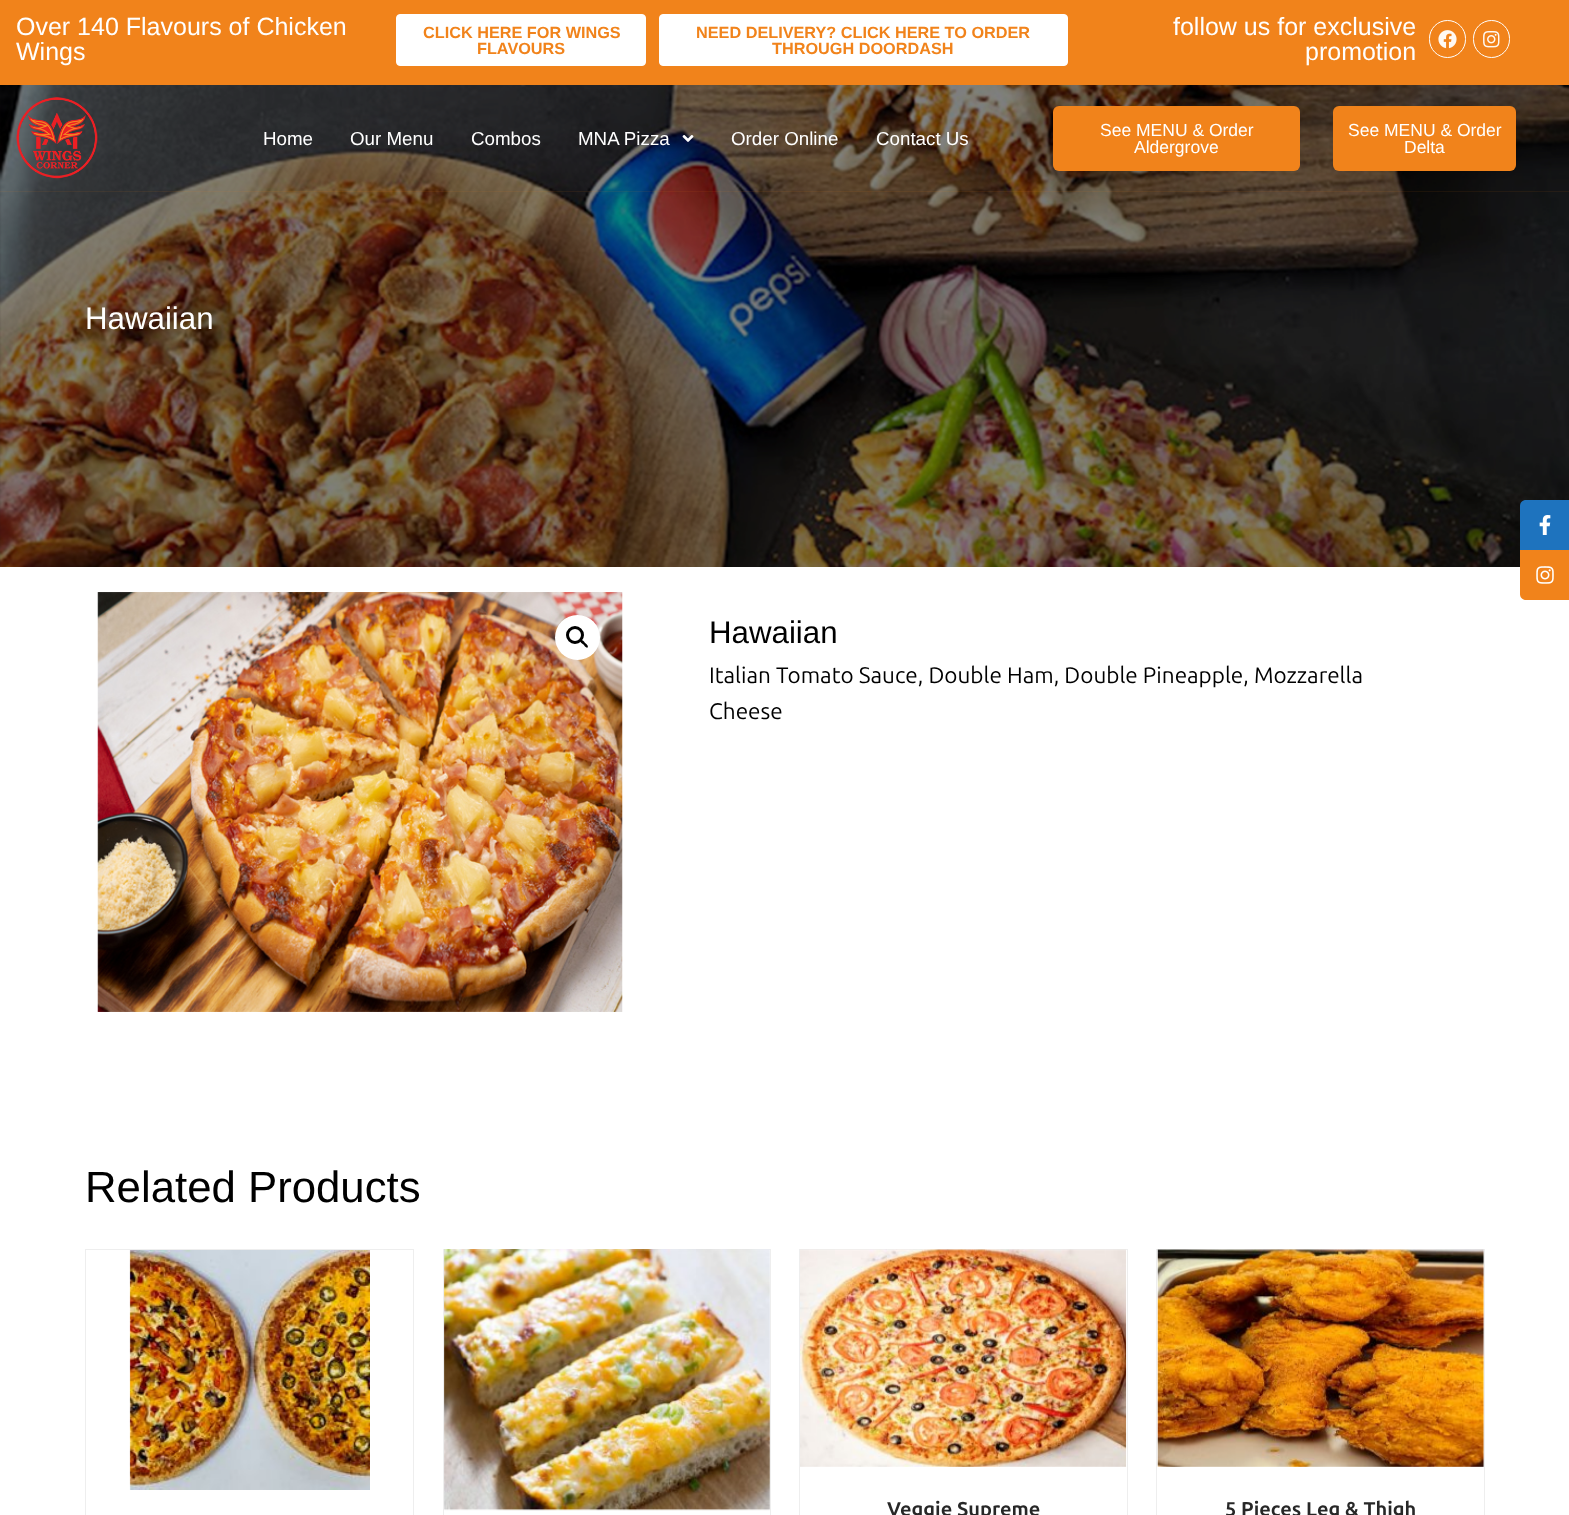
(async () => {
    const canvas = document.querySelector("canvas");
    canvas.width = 1569;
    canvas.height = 1515;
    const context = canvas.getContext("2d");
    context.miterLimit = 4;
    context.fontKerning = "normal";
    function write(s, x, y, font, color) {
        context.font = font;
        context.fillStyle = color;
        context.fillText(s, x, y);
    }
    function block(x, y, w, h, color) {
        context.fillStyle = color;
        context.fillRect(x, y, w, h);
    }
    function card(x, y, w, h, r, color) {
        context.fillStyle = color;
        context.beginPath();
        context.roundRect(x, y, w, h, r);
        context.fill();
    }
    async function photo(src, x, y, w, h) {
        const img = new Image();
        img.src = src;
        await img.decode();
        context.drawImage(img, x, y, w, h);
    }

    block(0, 0, 1569, 1515, "rgb(255, 255, 255)");
    block(0, 0, 1569, 85, "rgb(241, 131, 27)");
    write("Over 140 Flavours of Chicken", 16, 35, "25px Liberation Sans", "rgb(255, 255, 255)");
    write("Wings", 16, 60, "25px Liberation Sans", "rgb(255, 255, 255)");
    context.beginPath();
    context.roundRect(396.5, 14.5, 249, 51, 3.5);
    context.fill();
    context.strokeStyle = "rgb(255, 255, 255)";
    context.stroke();
    write("CLICK HERE FOR WINGS", 423, 38, "bold 16.25px Liberation Sans", "rgb(241, 131, 27)");
    write("FLAVOURS", 477, 54, "bold 16.25px Liberation Sans", "rgb(241, 131, 27)");
    context.fillStyle = "rgb(255, 255, 255)";
    context.beginPath();
    context.roundRect(659.5, 14.5, 408, 51, 3.5);
    context.fill();
    context.stroke();
    write("NEED DELIVERY? CLICK HERE TO ORDER", 696, 38, "bold 16.25px Liberation Sans", "rgb(241, 131, 27)");
    write("THROUGH DOORDASH", 772, 54, "bold 16.25px Liberation Sans", "rgb(241, 131, 27)");
    write("follow us for exclusive", 1173, 35, "25px Liberation Sans", "rgb(255, 255, 255)");
    write("promotion", 1305, 60, "25px Liberation Sans", "rgb(255, 255, 255)");
    context.beginPath();
    context.roundRect(1429.5, 20.5, 36, 37, 18);
    context.stroke();
    await photo("media/1.png", 1438, 30, 19, 19);
    context.beginPath();
    context.roundRect(1473.5, 20.5, 36, 37, 18);
    context.stroke();
    await photo("media/2.png", 1483, 31, 17, 17);
    await photo("media/5.png", 0, 85, 1569, 482);
    block(0, 191, 1569, 1, "rgba(241, 131, 27, 0.08)");
    await photo("media/3.png", 16, 97, 82, 82);
    write("Home", 263, 145, "18.75px Liberation Sans", "rgb(255, 255, 255)");
    write("Our Menu", 350, 145, "18.75px Liberation Sans", "rgb(255, 255, 255)");
    write("Combos", 471, 145, "18.75px Liberation Sans", "rgb(255, 255, 255)");
    write("MNA Pizza", 578, 145, "18.75px Liberation Sans", "rgb(255, 255, 255)");
    await photo("media/4.png", 682, 135, 12, 7);
    write("Order Online", 731, 145, "18.75px Liberation Sans", "rgb(255, 255, 255)");
    write("Contact Us", 876, 145, "18.75px Liberation Sans", "rgb(255, 255, 255)");
    card(1053, 106, 247, 65, 6, "rgb(241, 131, 27)");
    write("See MENU & Order", 1100, 136, "17.5px Liberation Sans", "rgb(255, 255, 255)");
    write("Aldergrove", 1134, 153, "17.5px Liberation Sans", "rgb(255, 255, 255)");
    card(1333, 106, 183, 65, 6, "rgb(241, 131, 27)");
    write("See MENU & Order", 1348, 136, "17.5px Liberation Sans", "rgb(255, 255, 255)");
    write("Delta", 1404, 153, "17.5px Liberation Sans", "rgb(255, 255, 255)");
    write("Hawaiian", 85, 329, "31.25px Liberation Sans", "rgb(255, 255, 255)");
    await photo("media/6.png", 97, 592, 526, 420);
    context.beginPath();
    context.arc(577.5, 637.5, 22.5, 0, Math.PI * 2);
    context.fill();
    context.beginPath();
    context.arc(575, 635, 7.5, 0, Math.PI * 2);
    context.strokeStyle = "rgb(0, 0, 0)";
    context.lineWidth = 3;
    context.stroke();
    context.fillStyle = "rgb(0, 0, 0)";
    context.beginPath();
    context.moveTo(580.5, 640);
    context.bezierCurveTo(582, 639, 584.5, 642, 585, 643);
    context.bezierCurveTo(586, 643.5, 589, 646, 587.5, 647.5);
    context.bezierCurveTo(586.5, 648.5, 584, 645.5, 583.5, 644.5);
    context.bezierCurveTo(582.5, 644, 579, 641.5, 580.5, 640);
    context.closePath();
    context.fill();
    write("Hawaiian", 709, 643, "31.25px Liberation Sans", "rgb(0, 0, 0)");
    write("Italian Tomato Sauce, Double Ham, Double Pineapple, Mozzarella", 709, 683, "22.5px Ubuntu", "rgb(0, 0, 0)");
    write("Cheese", 709, 719, "22.5px Ubuntu", "rgb(0, 0, 0)");
    write("Related Products", 85, 1202, "43.75px Liberation Sans", "rgb(0, 0, 0)");
    context.strokeStyle = "rgb(238, 238, 238)";
    context.lineWidth = 1;
    context.strokeRect(85.5, 1249.5, 328, 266);
    await photo("media/7.png", 129, 1250, 241, 240);
    context.strokeRect(443.5, 1249.5, 327, 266);
    await photo("media/8.png", 444, 1249, 326, 262);
    context.strokeRect(799.5, 1249.5, 328, 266);
    await photo("media/9.png", 800, 1249, 327, 218);
    write("Veggie Supreme", 887, 1516, "bold 20px Ubuntu", "rgb(39, 39, 39)");
    context.strokeRect(1156.5, 1249.5, 328, 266);
    await photo("media/10.png", 1157, 1249, 327, 218);
    write("5 Pieces Leg & Thigh", 1225, 1516, "bold 20px Ubuntu", "rgb(39, 39, 39)");
    context.fillStyle = "rgb(30, 115, 190)";
    context.beginPath();
    context.moveTo(1526, 500);
    context.lineTo(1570, 500);
    context.lineTo(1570, 550);
    context.lineTo(1520, 550);
    context.lineTo(1520, 506);
    context.bezierCurveTo(1520, 502.5, 1522.5, 500, 1526, 500);
    context.closePath();
    context.fill();
    await photo("media/11.png", 1539, 515, 12, 20);
    context.fillStyle = "rgb(241, 131, 27)";
    context.beginPath();
    context.moveTo(1520, 550);
    context.lineTo(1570, 550);
    context.lineTo(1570, 600);
    context.lineTo(1526, 600);
    context.bezierCurveTo(1522.5, 600, 1520, 597.5, 1520, 594);
    context.closePath();
    context.fill();
    await photo("media/12.png", 1536, 566, 18, 18);
})();
